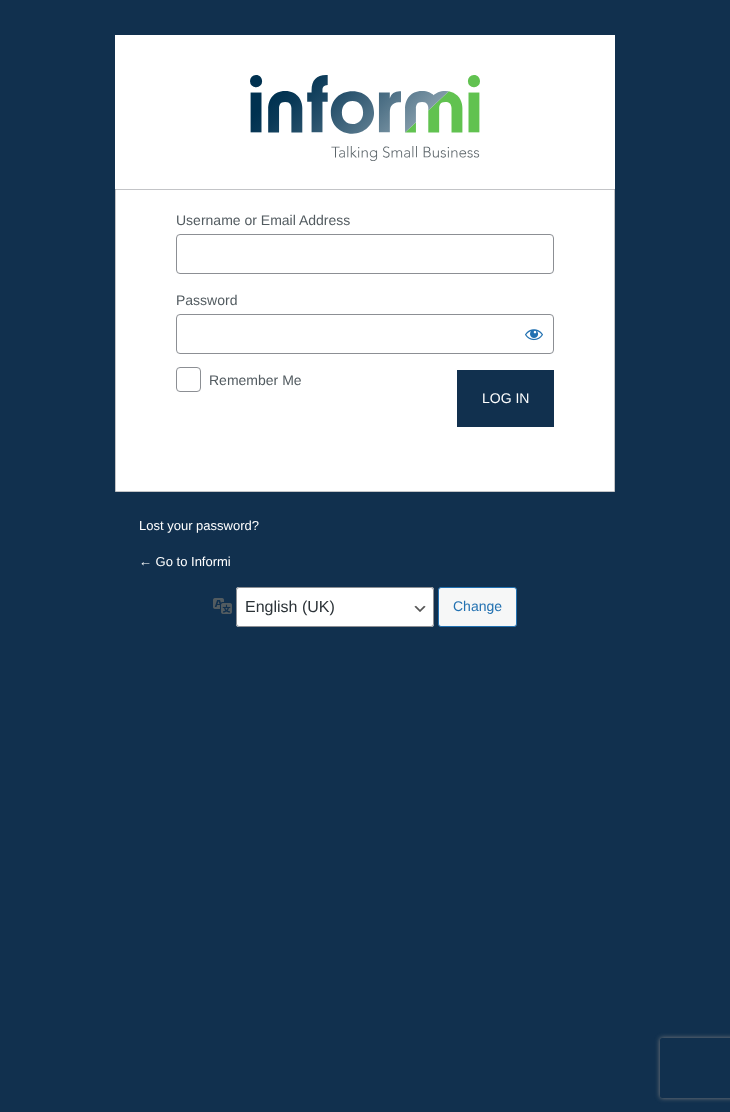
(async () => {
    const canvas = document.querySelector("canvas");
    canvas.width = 730;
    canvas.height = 1112;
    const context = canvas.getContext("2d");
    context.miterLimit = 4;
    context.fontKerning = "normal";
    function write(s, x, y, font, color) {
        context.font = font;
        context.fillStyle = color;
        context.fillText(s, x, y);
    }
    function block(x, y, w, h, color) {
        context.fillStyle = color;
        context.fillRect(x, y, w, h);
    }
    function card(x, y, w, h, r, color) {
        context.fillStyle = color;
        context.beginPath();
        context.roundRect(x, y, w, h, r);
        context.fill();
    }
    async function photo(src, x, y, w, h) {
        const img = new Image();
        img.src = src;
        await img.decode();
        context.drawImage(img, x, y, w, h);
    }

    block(0, 0, 730, 1112, "rgb(17, 48, 78)");
    block(115, 35, 500, 154, "rgb(255, 255, 255)");
    await photo("media/1.png", 250, 75, 230, 86);
    context.beginPath();
    context.rect(115.5, 189.5, 499, 302);
    context.fill();
    context.strokeStyle = "rgb(195, 196, 199)";
    context.stroke();
    write("Username or Email Address", 176, 225, "14px Liberation Sans", "rgb(82, 91, 96)");
    context.beginPath();
    context.roundRect(176.5, 234.5, 377, 39, 3.5);
    context.strokeStyle = "rgb(140, 143, 148)";
    context.stroke();
    write("Password", 176, 305, "14px Liberation Sans", "rgb(82, 91, 96)");
    context.beginPath();
    context.roundRect(176.5, 314.5, 377, 39, 3.5);
    context.stroke();
    await photo("media/2.png", 525, 329, 18, 12);
    context.beginPath();
    context.roundRect(176.5, 367.5, 24, 24, 3.5);
    context.stroke();
    write("Remember Me", 209, 385, "14px Liberation Sans", "rgb(82, 91, 96)");
    block(457, 370, 97, 57, "rgb(17, 48, 78)");
    write("LOG IN", 482, 403, "14px Liberation Sans", "rgb(255, 255, 255)");
    write("Lost your password?", 139, 530, "13px Liberation Sans", "rgb(255, 255, 255)");
    write("← Go to Informi", 139, 566, "13px Liberation Sans", "rgb(255, 255, 255)");
    await photo("media/3.png", 213, 598, 19, 16);
    card(236, 587, 198, 40, 3, "rgb(255, 255, 255)");
    await photo("media/4.png", 414, 605, 12, 7);
    context.beginPath();
    context.roundRect(236.5, 587.5, 197, 39, 2.5);
    context.stroke();
    write("English (UK)", 245, 612, "16px Liberation Sans", "rgb(44, 51, 56)");
    context.fillStyle = "rgb(246, 247, 247)";
    context.beginPath();
    context.roundRect(438.5, 587.5, 78, 39, 2.5);
    context.fill();
    context.strokeStyle = "rgb(34, 113, 177)";
    context.stroke();
    write("Change", 453, 611, "14px Liberation Sans", "rgb(34, 113, 177)");
    context.save();
    context.beginPath();
    context.moveTo(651, 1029);
    context.lineTo(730, 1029);
    context.lineTo(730, 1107);
    context.lineTo(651, 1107);
    context.closePath();
    context.moveTo(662, 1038);
    context.lineTo(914, 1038);
    context.bezierCurveTo(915, 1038, 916, 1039, 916, 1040);
    context.lineTo(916, 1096);
    context.bezierCurveTo(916, 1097, 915, 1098, 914, 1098);
    context.lineTo(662, 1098);
    context.bezierCurveTo(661, 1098, 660, 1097, 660, 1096);
    context.lineTo(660, 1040);
    context.bezierCurveTo(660, 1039, 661, 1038, 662, 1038);
    context.closePath();
    context.clip("evenodd");
    context.fillStyle = "rgb(128, 128, 128)";
    context.filter = "blur(2.5px)";
    context.beginPath();
    context.roundRect(660, 1038, 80, 60, 2);
    context.fill();
    context.filter = "none";
    context.restore();
})();
